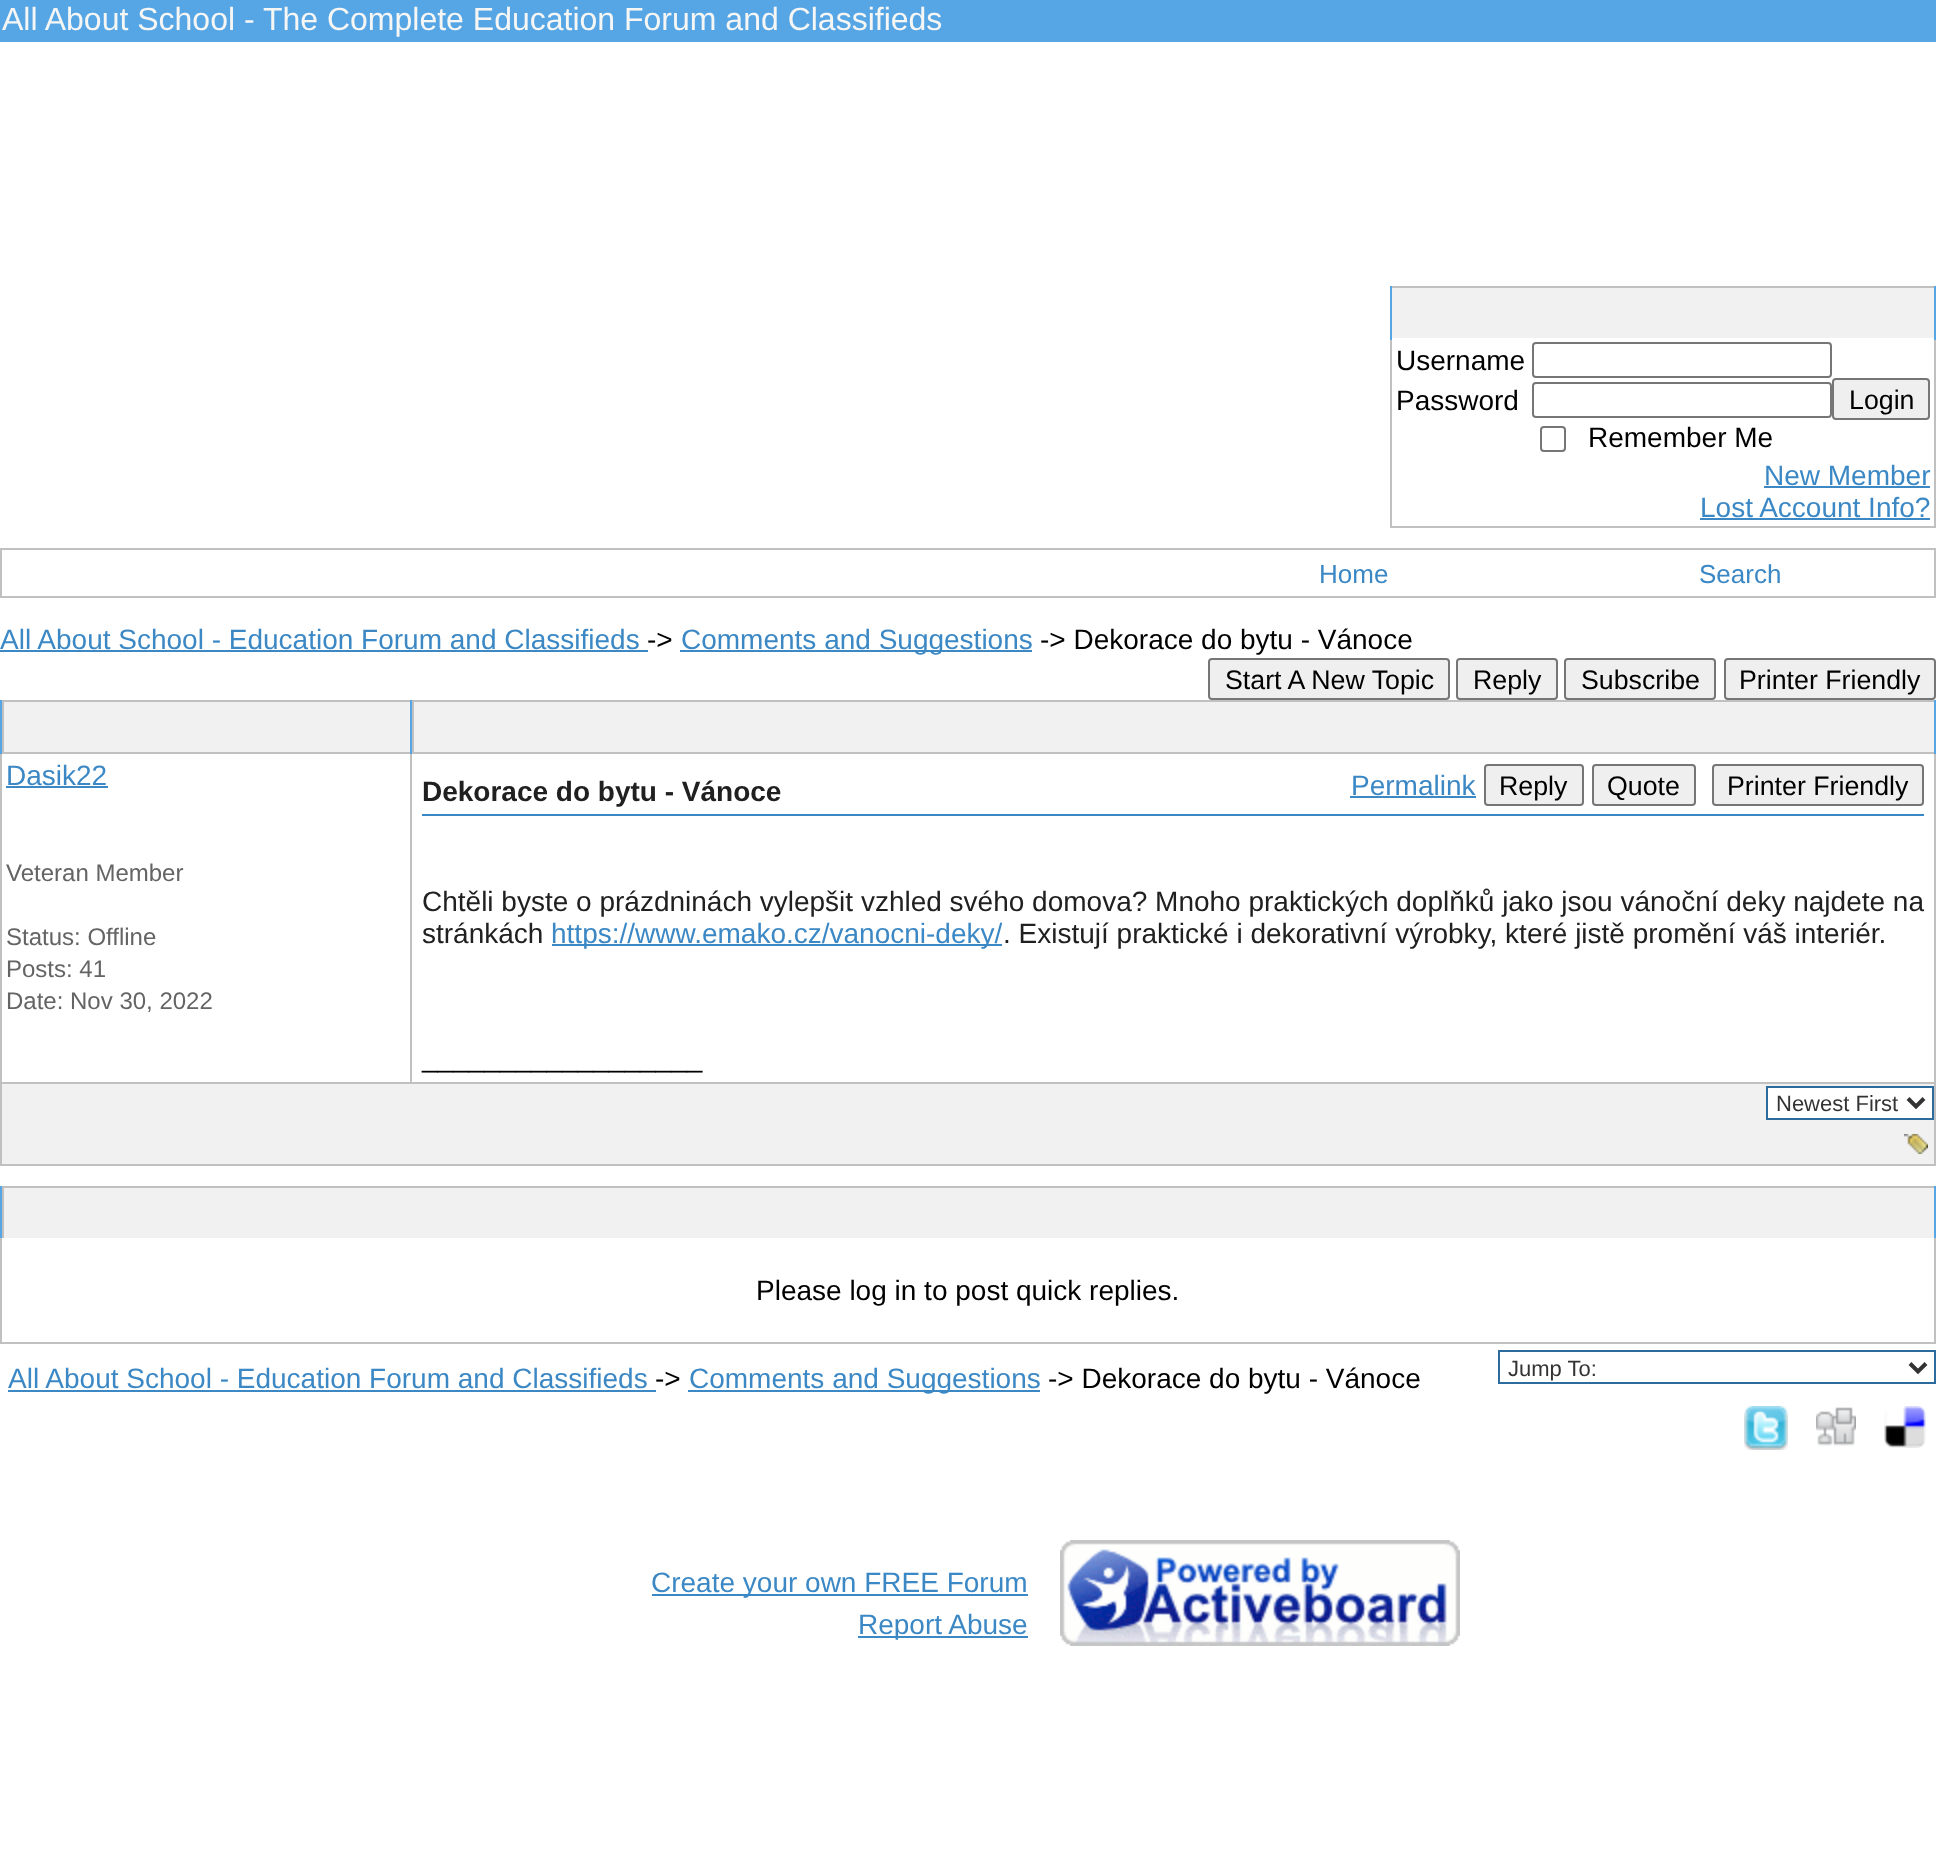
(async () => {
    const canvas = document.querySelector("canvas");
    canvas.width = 1936;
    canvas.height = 1850;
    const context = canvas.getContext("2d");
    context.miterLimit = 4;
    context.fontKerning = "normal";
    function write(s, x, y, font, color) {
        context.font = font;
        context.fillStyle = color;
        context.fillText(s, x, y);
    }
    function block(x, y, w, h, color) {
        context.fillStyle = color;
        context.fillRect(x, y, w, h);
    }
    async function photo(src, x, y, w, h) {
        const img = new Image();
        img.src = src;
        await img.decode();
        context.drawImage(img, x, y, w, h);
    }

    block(0, 0, 1936, 1850, "rgb(255, 255, 255)");
    block(0, 0, 1936, 42, "rgb(86, 166, 229)");
    write("All About School - The Complete Education Forum and Classifieds", 2, 30, "32px Liberation Sans", "rgb(246, 246, 245)");
    block(1392, 286, 542, 2, "rgb(192, 192, 192)");
    block(1934, 340, 2, 188, "rgb(192, 192, 192)");
    block(1390, 526, 546, 2, "rgb(192, 192, 192)");
    block(1390, 340, 2, 188, "rgb(192, 192, 192)");
    block(1392, 288, 542, 50, "rgb(241, 241, 242)");
    block(1934, 286, 2, 54, "rgb(86, 166, 229)");
    block(1390, 286, 2, 54, "rgb(86, 166, 229)");
    write("Username", 1396, 370, "28px Liberation Sans", "rgb(0, 0, 0)");
    context.beginPath();
    context.roundRect(1533, 343, 298, 34, 3);
    context.strokeStyle = "rgb(118, 118, 118)";
    context.lineWidth = 2;
    context.stroke();
    write("Password", 1396, 410, "28px Liberation Sans", "rgb(0, 0, 0)");
    context.beginPath();
    context.roundRect(1533, 383, 298, 34, 3);
    context.stroke();
    context.fillStyle = "rgb(239, 239, 239)";
    context.beginPath();
    context.roundRect(1833, 379, 96, 40, 3);
    context.fill();
    context.stroke();
    write("Login", 1849, 409, "26.75px Liberation Sans", "rgb(0, 0, 0)");
    context.beginPath();
    context.roundRect(1541, 427, 24, 24, 3);
    context.stroke();
    write("Remember Me", 1588, 447, "28px Liberation Sans", "rgb(0, 0, 0)");
    write("New Member", 1764, 485, "28px Liberation Sans", "rgb(59, 136, 197)");
    block(1764, 486, 166, 2, "rgb(59, 136, 197)");
    write("Lost Account Info?", 1700, 517, "28px Liberation Sans", "rgb(59, 136, 197)");
    block(1700, 518, 230, 2, "rgb(59, 136, 197)");
    block(0, 548, 1934, 48, "rgb(192, 192, 192)");
    block(1934, 548, 2, 50, "rgb(192, 192, 192)");
    block(0, 596, 1936, 2, "rgb(192, 192, 192)");
    block(2, 550, 1932, 46, "rgb(255, 255, 255)");
    write("Home", 1319, 583, "26px Liberation Sans", "rgb(59, 136, 197)");
    write("Search", 1699, 583, "26px Liberation Sans", "rgb(59, 136, 197)");
    write("All About School - Education Forum and Classifieds", 0, 649, "28px Liberation Sans", "rgb(59, 136, 197)");
    block(0, 650, 648, 2, "rgb(59, 136, 197)");
    write("->", 647, 649, "28px Liberation Sans", "rgb(0, 0, 0)");
    block(680, 650, 352, 2, "rgb(59, 136, 197)");
    write("Comments and Suggestions", 681, 649, "28px Liberation Sans", "rgb(59, 136, 197)");
    write("-> Dekorace do bytu - Vánoce", 1040, 649, "28px Liberation Sans", "rgb(0, 0, 0)");
    context.fillStyle = "rgb(239, 239, 239)";
    context.beginPath();
    context.roundRect(1209, 659, 240, 40, 3);
    context.fill();
    context.stroke();
    write("Start A New Topic", 1225, 689, "26.75px Liberation Sans", "rgb(0, 0, 0)");
    context.fillStyle = "rgb(239, 239, 239)";
    context.beginPath();
    context.roundRect(1457, 659, 100, 40, 3);
    context.fill();
    context.stroke();
    write("Reply", 1473, 689, "26.75px Liberation Sans", "rgb(0, 0, 0)");
    context.fillStyle = "rgb(239, 239, 239)";
    context.beginPath();
    context.roundRect(1565, 659, 150, 40, 3);
    context.fill();
    context.stroke();
    write("Subscribe", 1581, 689, "26.75px Liberation Sans", "rgb(0, 0, 0)");
    context.fillStyle = "rgb(239, 239, 239)";
    context.beginPath();
    context.roundRect(1725, 659, 210, 40, 3);
    context.fill();
    context.stroke();
    write("Printer Friendly", 1739, 689, "26.75px Liberation Sans", "rgb(0, 0, 0)");
    block(0, 700, 1934, 466, "rgb(192, 192, 192)");
    block(1934, 752, 2, 414, "rgb(192, 192, 192)");
    block(4, 702, 406, 50, "rgb(241, 241, 242)");
    block(0, 700, 2, 54, "rgb(86, 166, 229)");
    block(414, 702, 1520, 50, "rgb(241, 241, 242)");
    block(1934, 700, 2, 54, "rgb(86, 166, 229)");
    block(410, 700, 2, 54, "rgb(86, 166, 229)");
    block(2, 754, 408, 328, "rgb(255, 255, 255)");
    write("Dasik22", 6, 785, "28px Liberation Sans", "rgb(59, 136, 197)");
    block(6, 786, 102, 2, "rgb(59, 136, 197)");
    write("Veteran Member", 6, 881, "24px Liberation Sans", "rgb(100, 100, 100)");
    write("Status: Offline", 6, 945, "24px Liberation Sans", "rgb(100, 100, 100)");
    write("Posts: 41", 6, 977, "24px Liberation Sans", "rgb(100, 100, 100)");
    write("Date: Nov 30, 2022", 6, 1009, "24px Liberation Sans", "rgb(100, 100, 100)");
    block(412, 754, 1522, 328, "rgb(255, 255, 255)");
    write("Dekorace do bytu - Vánoce", 422, 801, "bold 28px Liberation Sans", "rgb(32, 32, 32)");
    write("Permalink", 1351, 795, "28px Liberation Sans", "rgb(59, 136, 197)");
    block(1350, 796, 126, 2, "rgb(59, 136, 197)");
    context.fillStyle = "rgb(239, 239, 239)";
    context.beginPath();
    context.roundRect(1485, 765, 98, 40, 3);
    context.fill();
    context.stroke();
    write("Reply", 1499, 795, "26.75px Liberation Sans", "rgb(0, 0, 0)");
    context.fillStyle = "rgb(239, 239, 239)";
    context.beginPath();
    context.roundRect(1593, 765, 102, 40, 3);
    context.fill();
    context.stroke();
    write("Quote", 1607, 795, "26.75px Liberation Sans", "rgb(0, 0, 0)");
    context.fillStyle = "rgb(239, 239, 239)";
    context.beginPath();
    context.roundRect(1713, 765, 210, 40, 3);
    context.fill();
    context.stroke();
    write("Printer Friendly", 1727, 795, "26.75px Liberation Sans", "rgb(0, 0, 0)");
    block(422, 814, 1502, 2, "rgb(56, 136, 199)");
    write("Chtěli byste o prázdninách vylepšit vzhled svého domova? Mnoho praktických doplňků jako jsou vánoční deky najdete na", 422, 911, "28px Liberation Sans", "rgb(32, 32, 32)");
    write("stránkách", 422, 943, "28px Liberation Sans", "rgb(32, 32, 32)");
    block(552, 944, 450, 2, "rgb(59, 136, 197)");
    write("https://www.emako.cz/vanocni-deky/", 551, 943, "28px Liberation Sans", "rgb(59, 136, 197)");
    write(". Existují praktické i dekorativní výrobky, které jistě promění váš interiér.", 1003, 943, "28px Liberation Sans", "rgb(32, 32, 32)");
    write("__________________", 422, 1067, "28px Liberation Sans", "rgb(0, 0, 0)");
    block(2, 1084, 1932, 80, "rgb(241, 241, 242)");
    context.fillStyle = "rgb(255, 255, 255)";
    context.beginPath();
    context.rect(1767, 1087, 166, 32);
    context.fill();
    context.strokeStyle = "rgb(44, 107, 157)";
    context.stroke();
    context.beginPath();
    context.moveTo(1908, 1098.5);
    context.lineTo(1916, 1106.5);
    context.lineTo(1924, 1098.5);
    context.strokeStyle = "rgb(51, 51, 51)";
    context.lineWidth = 4;
    context.stroke();
    write("Newest First", 1776, 1111, "22px Liberation Sans", "rgb(51, 51, 51)");
    await photo("media/1.png", 1904, 1134, 24, 20);
    block(0, 1188, 1934, 156, "rgb(192, 192, 192)");
    block(0, 1186, 1936, 2, "rgb(192, 192, 192)");
    block(1934, 1238, 2, 106, "rgb(192, 192, 192)");
    block(4, 1188, 1930, 50, "rgb(241, 241, 242)");
    block(1934, 1186, 2, 52, "rgb(86, 166, 229)");
    block(0, 1186, 2, 52, "rgb(86, 166, 229)");
    block(2, 1238, 1932, 104, "rgb(255, 255, 255)");
    write("Please log in to post quick replies.", 756, 1300, "28px Liberation Sans", "rgb(0, 0, 0)");
    write("All About School - Education Forum and Classifieds", 8, 1388, "28px Liberation Sans", "rgb(59, 136, 197)");
    block(8, 1390, 648, 2, "rgb(59, 136, 197)");
    write("->", 655, 1388, "28px Liberation Sans", "rgb(0, 0, 0)");
    block(688, 1390, 352, 2, "rgb(59, 136, 197)");
    write("Comments and Suggestions", 689, 1388, "28px Liberation Sans", "rgb(59, 136, 197)");
    write("-> Dekorace do bytu - Vánoce", 1048, 1388, "28px Liberation Sans", "rgb(0, 0, 0)");
    context.strokeStyle = "rgb(44, 107, 157)";
    context.lineWidth = 2;
    context.strokeRect(1499, 1351, 436, 32);
    context.beginPath();
    context.moveTo(1910, 1363.5);
    context.lineTo(1918, 1371.5);
    context.lineTo(1926, 1363.5);
    context.strokeStyle = "rgb(51, 51, 51)";
    context.lineWidth = 4;
    context.stroke();
    write("Jump To:", 1508, 1376, "22px Liberation Sans", "rgb(51, 51, 51)");
    await photo("media/2.png", 1744, 1406, 44, 44);
    await photo("media/3.png", 1816, 1407, 40, 39);
    await photo("media/4.png", 1884, 1406, 42, 42);
    block(652, 1594, 376, 2, "rgb(59, 136, 197)");
    write("Create your own FREE Forum", 651, 1592, "28px Liberation Sans", "rgb(59, 136, 197)");
    block(858, 1636, 170, 2, "rgb(59, 136, 197)");
    write("Report Abuse", 858, 1634, "28px Liberation Sans", "rgb(59, 136, 197)");
    await photo("media/5.png", 1060, 1540, 400, 106);
})();
